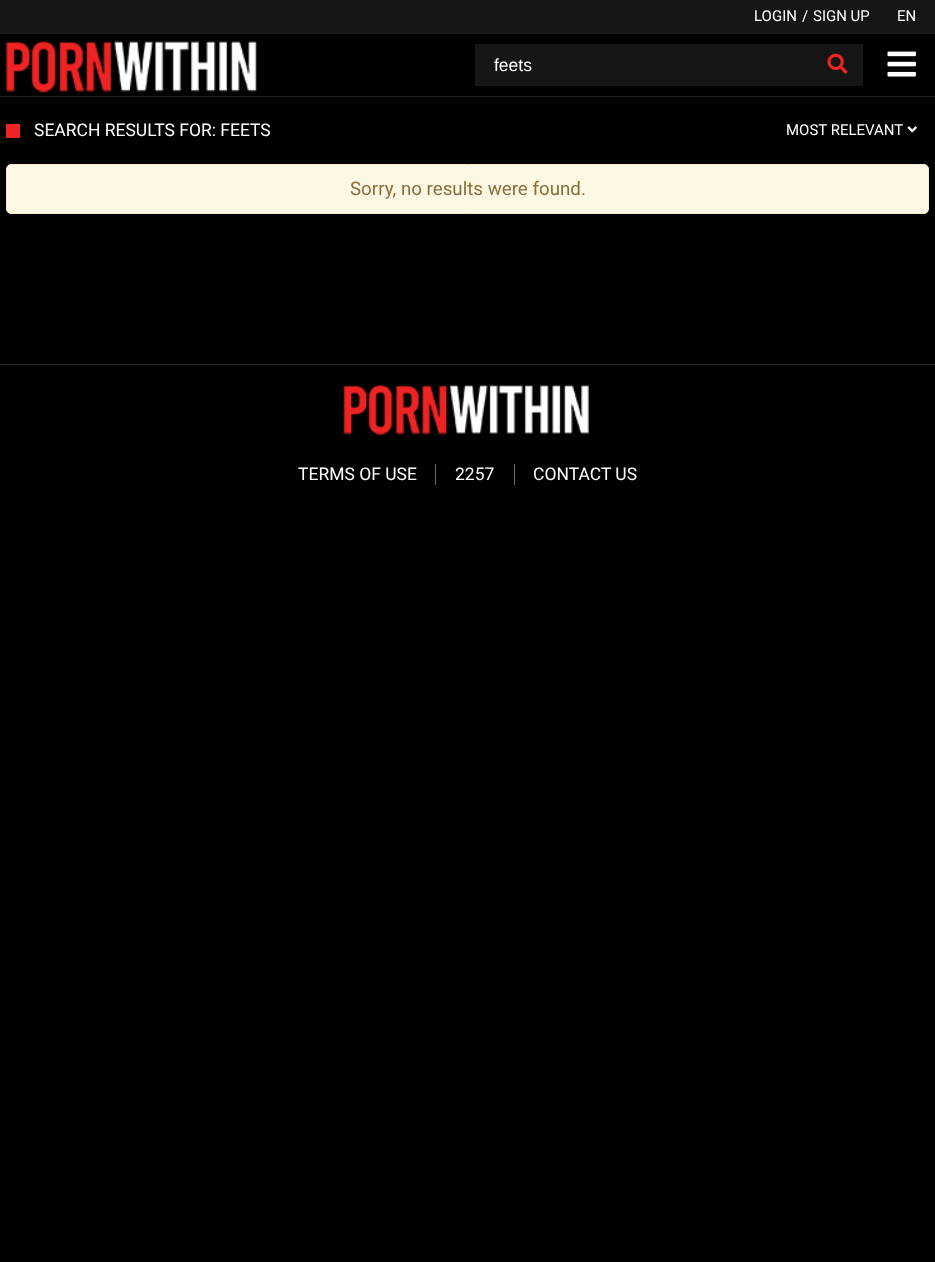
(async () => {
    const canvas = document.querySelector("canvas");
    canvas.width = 935;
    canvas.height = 1262;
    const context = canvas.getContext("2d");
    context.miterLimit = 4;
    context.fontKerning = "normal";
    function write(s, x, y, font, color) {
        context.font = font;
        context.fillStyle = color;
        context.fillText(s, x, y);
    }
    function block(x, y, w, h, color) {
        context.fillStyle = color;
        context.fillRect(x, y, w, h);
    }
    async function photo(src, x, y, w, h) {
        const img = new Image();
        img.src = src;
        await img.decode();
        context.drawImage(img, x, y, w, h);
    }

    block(0, 0, 935, 1262, "rgb(0, 0, 0)");
    block(0, 96, 935, 1, "rgb(30, 30, 30)");
    block(0, 0, 935, 34, "rgb(22, 22, 22)");
    write("LOGIN", 754, 21, "15px Roboto", "rgb(255, 255, 255)");
    write("/", 802, 21, "15px Roboto", "rgb(255, 255, 255)");
    write("SIGN UP", 813, 21, "15px Roboto", "rgb(255, 255, 255)");
    write("EN", 897, 21, "15px Roboto", "rgb(255, 255, 255)");
    await photo("media/1.png", 6, 41, 251, 52);
    block(475, 44, 388, 42, "rgb(22, 22, 22)");
    write("feets", 494, 71, "17.5px Liberation Sans", "rgb(255, 255, 255)");
    await photo("media/2.png", 827, 53, 21, 21);
    await photo("media/3.png", 887, 51, 29, 26);
    block(6, 124, 14, 14, "rgb(238, 35, 35)");
    write("SEARCH RESULTS FOR: FEETS", 34, 136, "17.5px Roboto", "rgb(255, 255, 255)");
    write("MOST RELEVANT", 786, 135, "15px Roboto", "rgb(255, 255, 255)");
    await photo("media/4.png", 907, 126, 10, 7);
    context.fillStyle = "rgb(252, 248, 227)";
    context.beginPath();
    context.roundRect(6.5, 164.5, 922, 49, 4.5);
    context.fill();
    context.strokeStyle = "rgb(250, 235, 204)";
    context.stroke();
    write("Sorry, no results were found.", 350, 195, "18.75px Roboto", "rgb(138, 109, 59)");
    block(0, 364, 935, 1, "rgb(47, 47, 47)");
    await photo("media/5.png", 343, 384, 246, 51);
    write("TERMS OF USE", 298, 480, "17.5px Roboto", "rgb(255, 255, 255)");
    block(435, 464, 1, 21, "rgb(106, 106, 106)");
    write("2257", 455, 480, "17.5px Roboto", "rgb(255, 255, 255)");
    block(514, 464, 1, 21, "rgb(106, 106, 106)");
    write("CONTACT US", 533, 480, "17.5px Roboto", "rgb(255, 255, 255)");
})();
